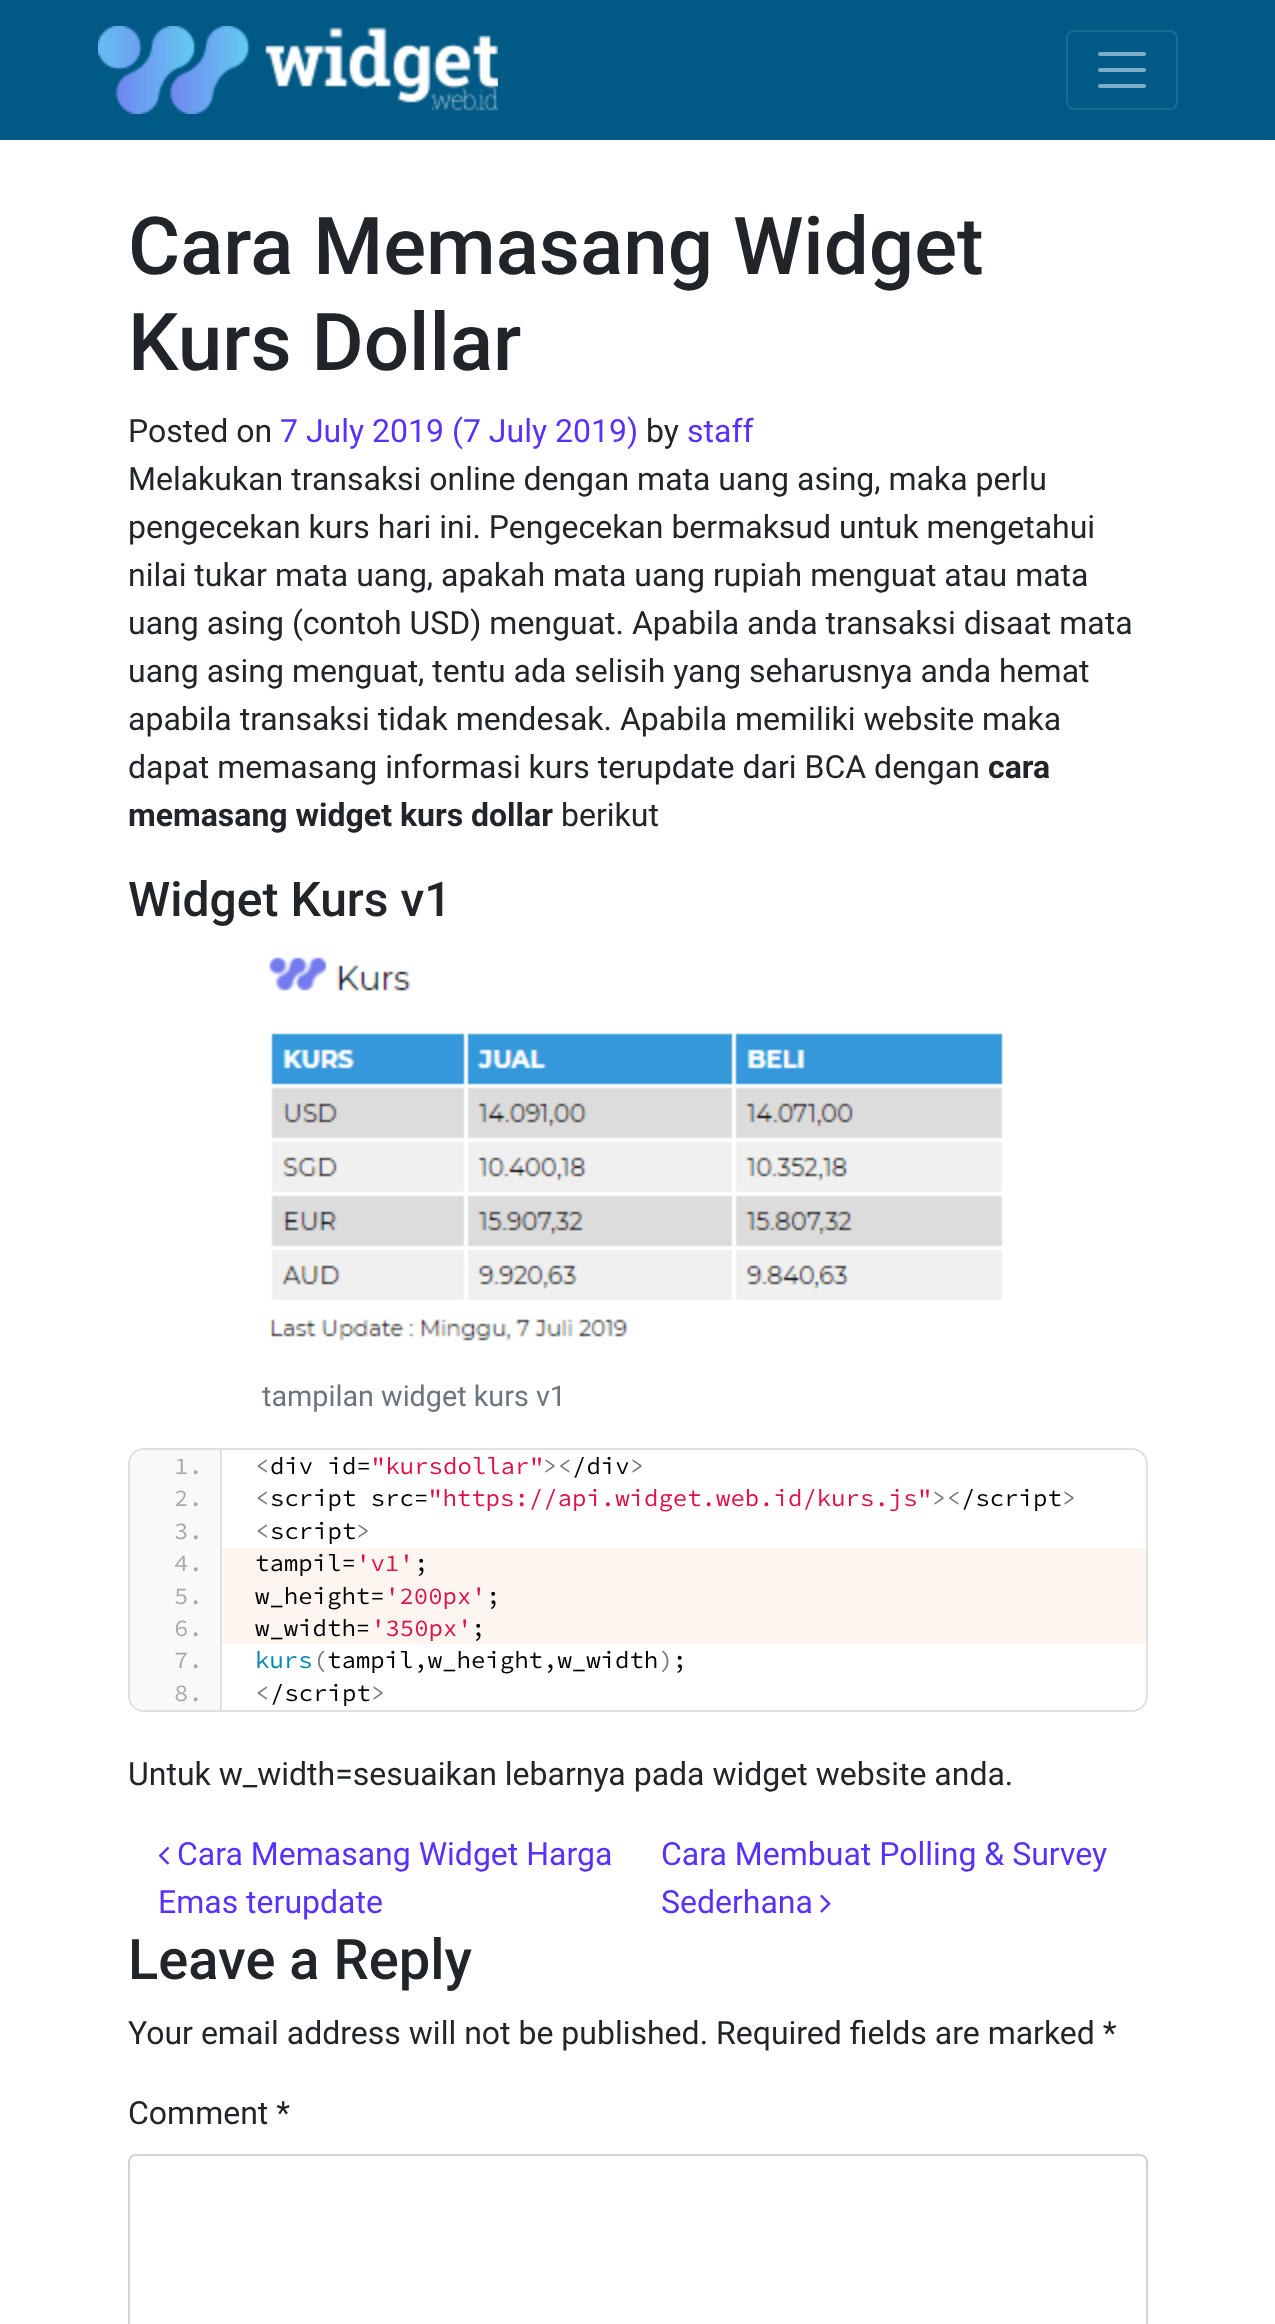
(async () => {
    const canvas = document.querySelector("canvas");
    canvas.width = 1275;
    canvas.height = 2324;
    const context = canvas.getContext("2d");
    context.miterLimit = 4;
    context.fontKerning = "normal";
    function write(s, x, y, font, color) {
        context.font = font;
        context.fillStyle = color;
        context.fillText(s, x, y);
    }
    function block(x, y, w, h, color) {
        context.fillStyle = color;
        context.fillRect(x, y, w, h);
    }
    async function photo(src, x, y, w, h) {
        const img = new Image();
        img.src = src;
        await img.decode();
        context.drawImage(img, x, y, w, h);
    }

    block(0, 0, 1275, 2324, "rgb(255, 255, 255)");
    block(0, 0, 1275, 140, "rgb(1, 90, 134)");
    await photo("media/1.png", 98, 26, 400, 88);
    context.beginPath();
    context.roundRect(1067, 31, 110, 78, 7);
    context.strokeStyle = "rgb(26, 107, 146)";
    context.lineWidth = 2;
    context.stroke();
    context.beginPath();
    context.moveTo(1100, 54);
    context.lineTo(1144, 54);
    context.moveTo(1100, 70);
    context.lineTo(1144, 70);
    context.moveTo(1100, 86);
    context.lineTo(1144, 86);
    context.strokeStyle = "rgb(128, 173, 195)";
    context.lineWidth = 4;
    context.lineCap = "round";
    context.stroke();
    write("Cara Memasang Widget", 128, 274, "500 80px Roboto", "rgb(33, 37, 41)");
    write("Kurs Dollar", 128, 370, "500 80px Roboto", "rgb(33, 37, 41)");
    write("Posted on", 128, 442, "32px Roboto", "rgb(33, 37, 41)");
    write("7 July 2019 (7 July 2019)", 280, 442, "32px Roboto", "rgb(85, 51, 255)");
    write("by", 646, 442, "32px Roboto", "rgb(33, 37, 41)");
    write("staff", 687, 442, "32px Roboto", "rgb(85, 51, 255)");
    write("Melakukan transaksi online dengan mata uang asing, maka perlu", 128, 490, "32px Roboto", "rgb(33, 37, 41)");
    write("pengecekan kurs hari ini. Pengecekan bermaksud untuk mengetahui", 128, 538, "32px Roboto", "rgb(33, 37, 41)");
    write("nilai tukar mata uang, apakah mata uang rupiah menguat atau mata", 128, 586, "32px Roboto", "rgb(33, 37, 41)");
    write("uang asing (contoh USD) menguat. Apabila anda transaksi disaat mata", 128, 634, "32px Roboto", "rgb(33, 37, 41)");
    write("uang asing menguat, tentu ada selisih yang seharusnya anda hemat", 128, 682, "32px Roboto", "rgb(33, 37, 41)");
    write("apabila transaksi tidak mendesak. Apabila memiliki website maka", 128, 730, "32px Roboto", "rgb(33, 37, 41)");
    write("dapat memasang informasi kurs terupdate dari BCA dengan", 128, 778, "32px Roboto", "rgb(33, 37, 41)");
    write("cara", 988, 778, "bold 32px Roboto", "rgb(33, 37, 41)");
    write("memasang widget kurs dollar", 128, 826, "bold 32px Roboto", "rgb(33, 37, 41)");
    write("berikut", 561, 826, "32px Roboto", "rgb(33, 37, 41)");
    write("Widget Kurs v1", 128, 916, "500 48px Roboto", "rgb(33, 37, 41)");
    await photo("media/2.png", 269, 957, 734, 384);
    write("tampilan widget kurs v1", 262, 1406, "28.75px Roboto", "rgb(108, 117, 125)");
    context.beginPath();
    context.roundRect(129, 1449, 1018, 262, 15);
    context.strokeStyle = "rgb(224, 224, 224)";
    context.lineWidth = 2;
    context.stroke();
    context.save();
    context.beginPath();
    context.roundRect(130, 1450, 1016, 260, 14);
    context.clip();
    context.fillStyle = "rgb(249, 249, 249)";
    context.beginPath();
    context.roundRect(130, 1450, 90, 32, [16, 0, 0, 0]);
    context.fill();
    context.restore();
    write("1.", 174, 1474, "24px Source Code Pro", "rgb(170, 170, 170)");
    write("<", 255, 1474, "24px Source Code Pro", "rgb(119, 119, 119)");
    write("div id=", 270, 1474, "24px Source Code Pro", "rgb(0, 0, 0)");
    write("\"kursdollar\"", 371, 1474, "24px Source Code Pro", "rgb(221, 17, 68)");
    write("><", 543, 1474, "24px Source Code Pro", "rgb(119, 119, 119)");
    write("/div", 572, 1474, "24px Source Code Pro", "rgb(0, 0, 0)");
    write(">", 630, 1474, "24px Source Code Pro", "rgb(119, 119, 119)");
    block(130, 1482, 90, 194, "rgb(249, 249, 249)");
    write("2.", 174, 1506, "24px Source Code Pro", "rgb(170, 170, 170)");
    write("<", 255, 1506, "24px Source Code Pro", "rgb(119, 119, 119)");
    write("script src=", 270, 1506, "24px Source Code Pro", "rgb(0, 0, 0)");
    write("\"https://api.widget.web.id/kurs.js\"", 428, 1506, "24px Source Code Pro", "rgb(221, 17, 68)");
    write("><", 932, 1506, "24px Source Code Pro", "rgb(119, 119, 119)");
    write("/script", 961, 1506, "24px Source Code Pro", "rgb(0, 0, 0)");
    write(">", 1062, 1506, "24px Source Code Pro", "rgb(119, 119, 119)");
    write("3.", 174, 1539, "24px Source Code Pro", "rgb(170, 170, 170)");
    write("<", 255, 1539, "24px Source Code Pro", "rgb(119, 119, 119)");
    write("script", 270, 1539, "24px Source Code Pro", "rgb(0, 0, 0)");
    write(">", 356, 1539, "24px Source Code Pro", "rgb(119, 119, 119)");
    block(222, 1548, 924, 96, "rgb(253, 245, 240)");
    write("4.", 174, 1571, "24px Source Code Pro", "rgb(170, 170, 170)");
    write("tampil=", 255, 1571, "24px Source Code Pro", "rgb(0, 0, 0)");
    write("'v1'", 356, 1571, "24px Source Code Pro", "rgb(221, 17, 68)");
    write(";", 414, 1571, "24px Source Code Pro", "rgb(0, 0, 0)");
    write("5.", 174, 1604, "24px Source Code Pro", "rgb(170, 170, 170)");
    write("w_height=", 255, 1604, "24px Source Code Pro", "rgb(0, 0, 0)");
    write("'200px'", 385, 1604, "24px Source Code Pro", "rgb(221, 17, 68)");
    write(";", 486, 1604, "24px Source Code Pro", "rgb(0, 0, 0)");
    write("6.", 174, 1636, "24px Source Code Pro", "rgb(170, 170, 170)");
    write("w_width=", 255, 1636, "24px Source Code Pro", "rgb(0, 0, 0)");
    write("'350px'", 371, 1636, "24px Source Code Pro", "rgb(221, 17, 68)");
    write(";", 471, 1636, "24px Source Code Pro", "rgb(0, 0, 0)");
    write("7.", 174, 1668, "24px Source Code Pro", "rgb(170, 170, 170)");
    write("kurs", 255, 1668, "24px Source Code Pro", "rgb(0, 134, 179)");
    write("(", 313, 1668, "24px Source Code Pro", "rgb(119, 119, 119)");
    write("tampil,w_height,w_width ;", 327, 1668, "24px Source Code Pro", "rgb(0, 0, 0)");
    write(")", 659, 1668, "24px Source Code Pro", "rgb(119, 119, 119)");
    context.save();
    context.beginPath();
    context.roundRect(130, 1450, 1016, 260, 14);
    context.clip();
    context.fillStyle = "rgb(249, 249, 249)";
    context.beginPath();
    context.roundRect(130, 1676, 90, 34, [0, 0, 0, 16]);
    context.fill();
    context.restore();
    block(220, 1450, 2, 260, "rgb(224, 224, 224)");
    write("8.", 174, 1701, "24px Source Code Pro", "rgb(170, 170, 170)");
    write("<", 255, 1701, "24px Source Code Pro", "rgb(119, 119, 119)");
    write("/script", 270, 1701, "24px Source Code Pro", "rgb(0, 0, 0)");
    write(">", 371, 1701, "24px Source Code Pro", "rgb(119, 119, 119)");
    write("Untuk w_width=sesuaikan lebarnya pada widget website anda.", 128, 1785, "32px Roboto", "rgb(33, 37, 41)");
    await photo("media/3.png", 158, 1846, 12, 19);
    write("Cara Memasang Widget Harga", 177, 1865, "32px Roboto", "rgb(85, 51, 255)");
    write("Emas terupdate", 158, 1913, "32px Roboto", "rgb(85, 51, 255)");
    write("Cara Membuat Polling & Survey", 661, 1865, "32px Roboto", "rgb(85, 51, 255)");
    write("Sederhana", 661, 1913, "32px Roboto", "rgb(85, 51, 255)");
    await photo("media/4.png", 820, 1894, 11, 19);
    write("Leave a Reply", 128, 1979, "500 56px Roboto", "rgb(33, 37, 41)");
    write("Your email address will not be published. Required fields are marked *", 128, 2044, "32px Roboto", "rgb(33, 37, 41)");
    write("Comment *", 128, 2124, "32px Roboto", "rgb(33, 37, 41)");
    context.beginPath();
    context.roundRect(129, 2155, 1018, 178, 7);
    context.strokeStyle = "rgb(206, 212, 218)";
    context.stroke();
})();
